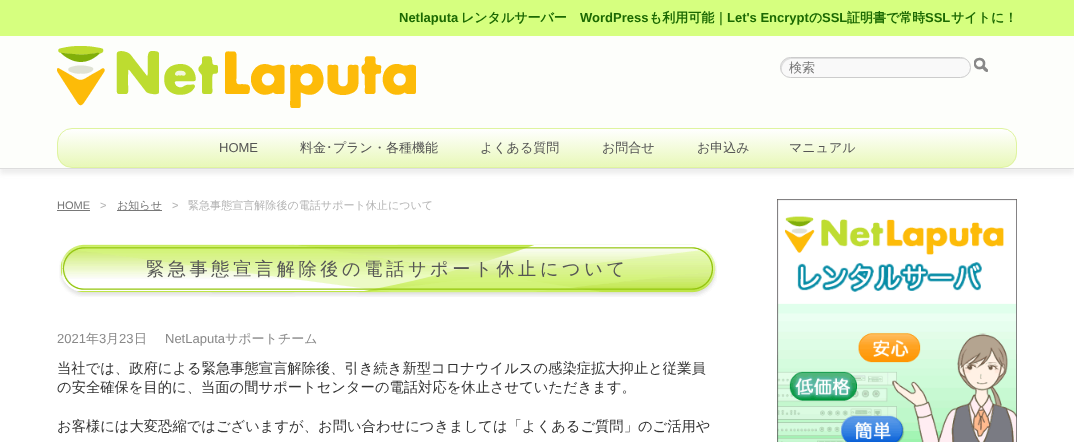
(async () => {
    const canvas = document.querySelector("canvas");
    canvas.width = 1074;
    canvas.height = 442;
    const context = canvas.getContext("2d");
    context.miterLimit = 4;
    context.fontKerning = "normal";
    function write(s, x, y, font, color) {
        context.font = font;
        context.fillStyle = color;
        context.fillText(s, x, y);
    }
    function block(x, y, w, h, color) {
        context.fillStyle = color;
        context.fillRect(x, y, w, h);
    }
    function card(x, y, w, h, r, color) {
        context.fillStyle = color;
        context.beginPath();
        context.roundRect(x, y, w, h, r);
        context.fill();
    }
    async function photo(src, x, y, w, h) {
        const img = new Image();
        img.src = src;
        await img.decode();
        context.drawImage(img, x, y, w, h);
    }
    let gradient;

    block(0, 0, 1074, 442, "rgb(214, 255, 127)");
    write("Netlaputa", 399, 22, "bold 13px Liberation Sans", "rgb(27, 105, 2)");
    write("レンタルサーバー", 461, 22, "bold 13px WenQuanYi Zen Hei", "rgb(27, 105, 2)");
    write("WordPress", 580, 22, "bold 13px Liberation Sans", "rgb(27, 105, 2)");
    write("も利用可能｜", 649, 22, "bold 13px WenQuanYi Zen Hei", "rgb(27, 105, 2)");
    write("Let's Encrypt", 727, 22, "bold 13px Liberation Sans", "rgb(27, 105, 2)");
    write("の", 809, 22, "bold 13px WenQuanYi Zen Hei", "rgb(27, 105, 2)");
    write("SSL", 822, 22, "bold 13px Liberation Sans", "rgb(27, 105, 2)");
    write("証明書で常時", 847, 22, "bold 13px WenQuanYi Zen Hei", "rgb(27, 105, 2)");
    write("SSL", 925, 22, "bold 13px Liberation Sans", "rgb(27, 105, 2)");
    write("サイトに！", 951, 22, "bold 13px WenQuanYi Zen Hei", "rgb(27, 105, 2)");
    block(0, 169, 1074, 273, "rgb(255, 255, 255)");
    context.fillStyle = "rgba(221, 221, 221, 0.5)";
    context.filter = "blur(2px)";
    context.beginPath();
    context.rect(0, 41, 1074, 133);
    context.fill();
    context.filter = "none";
    block(0, 36, 1074, 132, "rgb(253, 254, 251)");
    block(0, 168, 1074, 1, "rgb(221, 221, 221)");
    await photo("media/1.png", 57, 46, 359, 62);
    card(780, 57, 191, 21, 10.5, "rgb(249, 249, 249)");
    context.fillStyle = "rgb(224, 224, 224)";
    context.beginPath();
    context.moveTo(792, 59);
    context.lineTo(962, 59);
    context.bezierCurveTo(964, 59, 965, 59, 967, 60);
    context.bezierCurveTo(965, 59, 963, 58, 961, 58);
    context.lineTo(790, 58);
    context.bezierCurveTo(782, 58, 778, 69, 784, 75);
    context.bezierCurveTo(779, 68, 784, 59, 792, 59);
    context.closePath();
    context.fill();
    context.beginPath();
    context.roundRect(780.5, 57.5, 190, 20, 10);
    context.strokeStyle = "rgb(204, 204, 204)";
    context.stroke();
    write("検索", 789, 72, "500 13px WenQuanYi Zen Hei", "rgb(117, 117, 117)");
    await photo("media/2.png", 974, 57, 14, 15);
    context.save();
    context.beginPath();
    context.roundRect(57, 128, 960, 40, 15);
    context.clip();
    gradient = context.createLinearGradient(537, 129, 537, 167);
    gradient.addColorStop(0, "rgb(255, 255, 255)");
    gradient.addColorStop(1, "rgb(232, 248, 184)");
    context.fillStyle = gradient;
    context.fillRect(57, 129, 960, 38);
    context.restore();
    context.beginPath();
    context.roundRect(57.5, 128.5, 959, 39, 14.5);
    context.strokeStyle = "rgb(223, 244, 160)";
    context.stroke();
    write("HOME", 219, 152, "13px Liberation Sans", "rgb(85, 85, 85)");
    write("料金", 300, 152, "500 13px WenQuanYi Zen Hei", "rgb(85, 85, 85)");
    write("･", 326, 152, "13px IPAPGothic", "rgb(85, 85, 85)");
    write("プラン・各種機能", 333, 152, "500 13px WenQuanYi Zen Hei", "rgb(85, 85, 85)");
    write("よくある質問", 480, 152, "500 13px WenQuanYi Zen Hei", "rgb(85, 85, 85)");
    write("お問合せ", 602, 152, "500 13px WenQuanYi Zen Hei", "rgb(85, 85, 85)");
    write("お申込み", 697, 152, "500 13px WenQuanYi Zen Hei", "rgb(85, 85, 85)");
    write("マニュアル", 789, 152, "500 13px WenQuanYi Zen Hei", "rgb(85, 85, 85)");
    write("HOME", 57, 209, "11.05px Liberation Sans", "rgb(117, 117, 117)");
    block(57, 210, 33, 1, "rgb(120, 120, 120)");
    write(">", 100, 209, "11.05px Liberation Sans", "rgb(180, 180, 180)");
    block(117, 210, 45, 1, "rgb(120, 120, 120)");
    write("お知らせ", 117, 209, "500 11.05px WenQuanYi Zen Hei", "rgb(117, 117, 117)");
    write(">", 172, 209, "11.05px Liberation Sans", "rgb(180, 180, 180)");
    write("緊急事態宣言解除後の電話サポート休止について", 188, 209, "500 11.05px WenQuanYi Zen Hei", "rgb(180, 180, 180)");
    await photo("media/3.png", 59, 244, 658, 53);
    context.letterSpacing = "3.6px";
    write("緊急事態宣言解除後の電話サポート休止について", 146, 275, "500 18.2px WenQuanYi Zen Hei", "rgb(85, 85, 85)");
    context.letterSpacing = "0px";
    write("2021", 57, 343, "13px Liberation Sans", "rgb(136, 136, 136)");
    write("年", 86, 343, "500 13px WenQuanYi Zen Hei", "rgb(136, 136, 136)");
    write("3", 99, 343, "13px Liberation Sans", "rgb(136, 136, 136)");
    write("月", 106, 343, "500 13px WenQuanYi Zen Hei", "rgb(136, 136, 136)");
    write("23", 119, 343, "13px Liberation Sans", "rgb(136, 136, 136)");
    write("日", 134, 343, "500 13px WenQuanYi Zen Hei", "rgb(136, 136, 136)");
    write("NetLaputa", 165, 343, "13px Liberation Sans", "rgb(136, 136, 136)");
    write("サポートチーム", 225, 343, "500 13px WenQuanYi Zen Hei", "rgb(136, 136, 136)");
    write("当社では、政府による緊急事態宣言解除後、引き続き新型コロナウイルスの感染症拡大抑止と従業員", 57, 373, "500 14.3px WenQuanYi Zen Hei", "rgb(51, 51, 51)");
    write("の安全確保を目的に、当面の間サポートセンターの電話対応を休止させていただきます。", 57, 392, "500 14.3px WenQuanYi Zen Hei", "rgb(51, 51, 51)");
    write("お客様には大変恐縮ではございますが、お問い合わせにつきましては「よくあるご質問」のご活用や", 57, 431, "500 14.3px WenQuanYi Zen Hei", "rgb(51, 51, 51)");
    await photo("media/4.png", 777, 199, 240, 243);
})();
